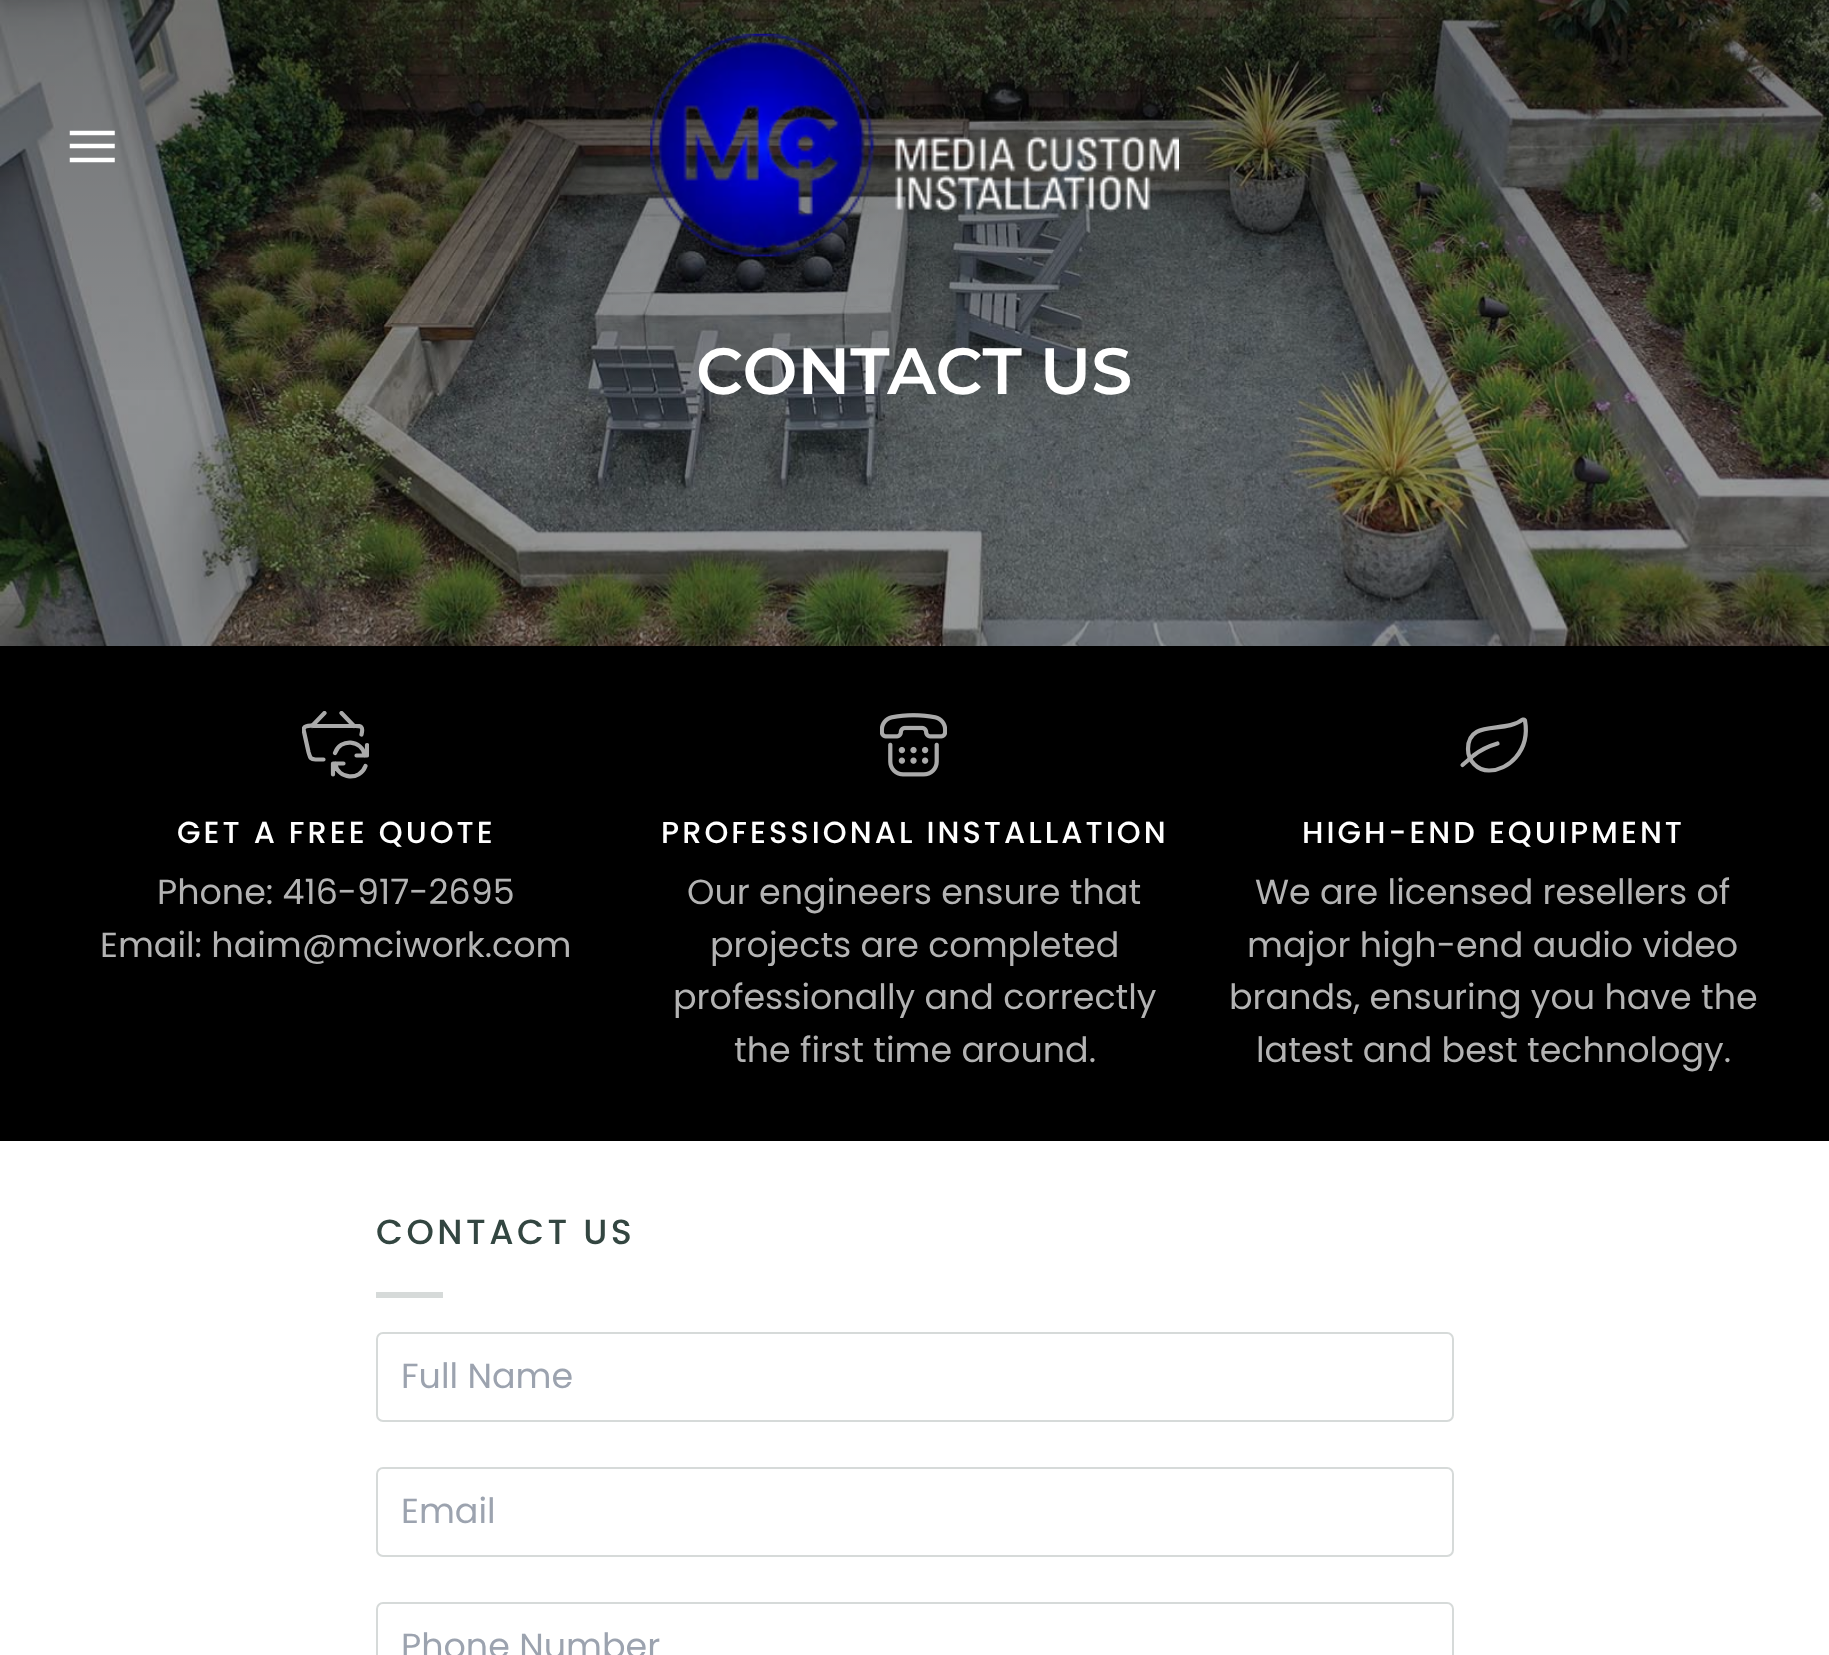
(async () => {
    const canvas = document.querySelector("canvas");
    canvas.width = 1829;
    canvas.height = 1655;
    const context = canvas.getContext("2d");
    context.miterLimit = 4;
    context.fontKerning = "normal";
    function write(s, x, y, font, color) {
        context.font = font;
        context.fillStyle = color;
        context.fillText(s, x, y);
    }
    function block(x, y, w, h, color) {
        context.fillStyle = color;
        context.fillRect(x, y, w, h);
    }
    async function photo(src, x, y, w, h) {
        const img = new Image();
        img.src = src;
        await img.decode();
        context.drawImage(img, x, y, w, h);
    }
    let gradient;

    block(0, 0, 1829, 1655, "rgb(255, 255, 255)");
    await photo("media/2.png", 0, 0, 1829, 646);
    gradient = context.createLinearGradient(915, 0, 915, 437);
    gradient.addColorStop(0, "rgba(0, 0, 0, 0.2)");
    gradient.addColorStop(1, "rgba(0, 0, 0, 0)");
    context.fillStyle = gradient;
    context.fillRect(0, 0, 1829, 390);
    context.beginPath();
    context.moveTo(112.5, 133);
    context.lineTo(72, 133);
    context.moveTo(112.5, 146);
    context.lineTo(72, 146);
    context.moveTo(112.5, 160);
    context.lineTo(72, 160);
    context.strokeStyle = "rgb(255, 255, 255)";
    context.lineWidth = 4.5;
    context.lineCap = "square";
    context.stroke();
    await photo("media/1.png", 650, 33, 529, 224);
    write("CONTACT US", 696, 394, "600 65.25px Montserrat", "rgb(255, 255, 255)");
    block(0, 646, 1829, 495, "rgb(0, 0, 0)");
    context.save();
    context.beginPath();
    context.rect(302, 711, 67, 68);
    context.clip();
    context.beginPath();
    context.moveTo(343.5, 763.5);
    context.lineTo(333, 763.5);
    context.lineTo(333, 774.5);
    context.moveTo(365.5, 766);
    context.bezierCurveTo(360, 781, 338, 779.5, 335, 763.5);
    context.moveTo(356.5, 755.5);
    context.lineTo(367, 755.5);
    context.lineTo(367, 745);
    context.moveTo(335, 753);
    context.bezierCurveTo(340, 738, 362, 739.5, 365, 755.5);
    context.strokeStyle = "rgb(170, 170, 170)";
    context.lineWidth = 4.2;
    context.lineCap = "round";
    context.lineJoin = "round";
    context.setLineDash([281.25, 281.25]);
    context.stroke();
    context.beginPath();
    context.moveTo(323.5, 759.5);
    context.lineTo(315.5, 759.5);
    context.bezierCurveTo(310, 759.5, 310, 757, 308.5, 752);
    context.lineTo(303.5, 729.5);
    context.bezierCurveTo(304, 724, 313, 726, 316, 726);
    context.lineTo(350, 726);
    context.bezierCurveTo(360, 726, 364, 724.5, 361.5, 734.5);
    context.moveTo(312, 726);
    context.lineTo(324.5, 713);
    context.moveTo(354, 726);
    context.lineTo(341.5, 713);
    context.stroke();
    context.restore();
    context.letterSpacing = "3.05px";
    write("GET A FREE QUOTE", 177, 843, "500 30.4px Poppins", "rgb(255, 255, 255)");
    context.letterSpacing = "0px";
    write("Phone: 416-917-2695", 157, 904, "34.9px Poppins", "rgb(179, 179, 179)");
    write("Email: haim@mciwork.com", 100, 957, "34.9px Poppins", "rgb(179, 179, 179)");
    await photo("media/3.png", 880, 713, 67, 64);
    context.letterSpacing = "3.05px";
    write("PROFESSIONAL INSTALLATION", 661, 843, "500 30.4px Poppins", "rgb(255, 255, 255)");
    context.letterSpacing = "0px";
    write("Our engineers ensure that", 687, 904, "34.9px Poppins", "rgb(179, 179, 179)");
    write("projects are completed", 710, 957, "34.9px Poppins", "rgb(179, 179, 179)");
    write("professionally and correctly", 673, 1009, "34.9px Poppins", "rgb(179, 179, 179)");
    write("the first time around.", 734, 1062, "34.9px Poppins", "rgb(179, 179, 179)");
    context.beginPath();
    context.moveTo(1489, 770.5);
    context.bezierCurveTo(1477.5, 770.5, 1468, 761, 1468, 749);
    context.bezierCurveTo(1468, 718.5, 1505, 734, 1522.5, 719.5);
    context.lineTo(1524, 719.5);
    context.lineTo(1525, 720.5);
    context.bezierCurveTo(1530.5, 752, 1507, 770.5, 1489, 770.5);
    context.strokeStyle = "rgb(170, 170, 170)";
    context.lineWidth = 4.2;
    context.lineCap = "round";
    context.lineJoin = "round";
    context.stroke();
    context.beginPath();
    context.moveTo(1497.5, 743.5);
    context.bezierCurveTo(1489, 746, 1480.5, 750, 1473.5, 755.5);
    context.lineTo(1462.5, 765);
    context.stroke();
    context.letterSpacing = "3.05px";
    write("HIGH-END EQUIPMENT", 1302, 843, "500 30.4px Poppins", "rgb(255, 255, 255)");
    context.letterSpacing = "0px";
    write("We are licensed resellers of", 1255, 904, "34.9px Poppins", "rgb(179, 179, 179)");
    write("major high-end audio video", 1247, 957, "34.9px Poppins", "rgb(179, 179, 179)");
    write("brands, ensuring you have the", 1229, 1009, "34.9px Poppins", "rgb(179, 179, 179)");
    write("latest and best technology.", 1256, 1062, "34.9px Poppins", "rgb(179, 179, 179)");
    context.letterSpacing = "3.5px";
    write("CONTACT US", 376, 1244, "500 34.9px Poppins", "rgb(51, 70, 65)");
    block(376, 1292, 67, 6, "rgb(214, 218, 217)");
    context.beginPath();
    context.roundRect(377, 1333, 1076, 88, 6);
    context.strokeStyle = "rgb(214, 218, 217)";
    context.lineWidth = 2;
    context.lineJoin = "miter";
    context.stroke();
    context.letterSpacing = "0px";
    write("Full Name", 401, 1388, "34.9px Poppins", "rgb(156, 163, 175)");
    context.beginPath();
    context.roundRect(377, 1468, 1076, 88, 6);
    context.stroke();
    write("Email", 401, 1523, "34.9px Poppins", "rgb(156, 163, 175)");
    context.beginPath();
    context.roundRect(377, 1603, 1076, 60, 6);
    context.stroke();
    write("Phone Number", 401, 1658, "34.9px Poppins", "rgb(156, 163, 175)");
})();
